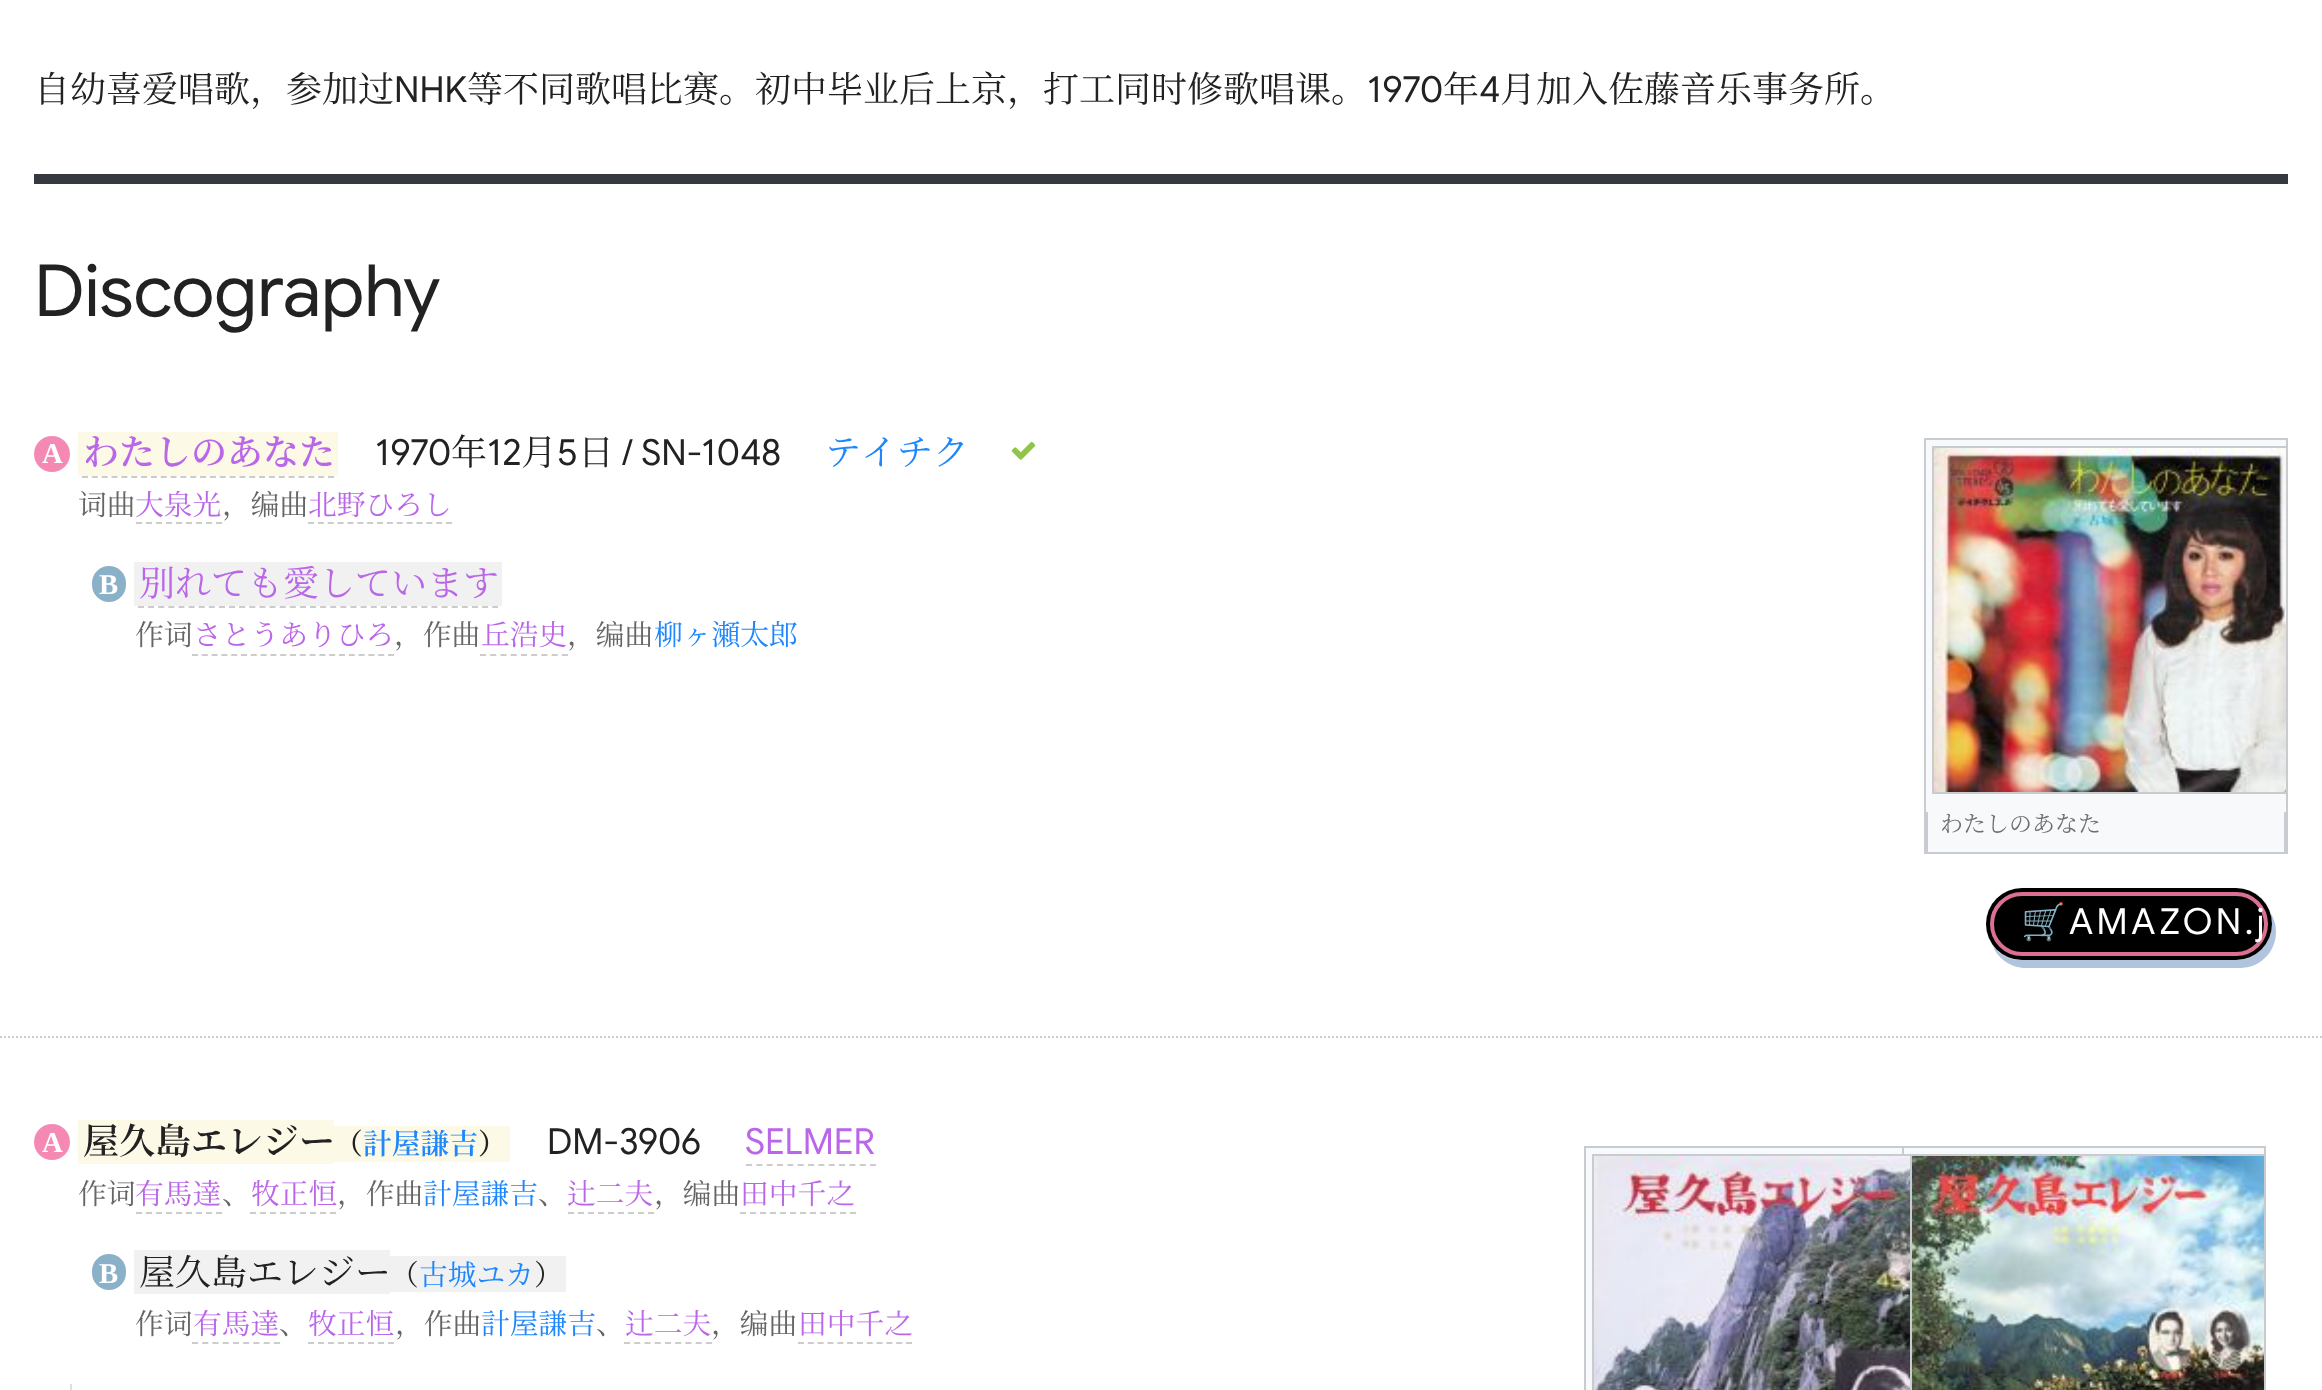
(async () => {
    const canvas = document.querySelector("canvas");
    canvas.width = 2322;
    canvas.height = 1390;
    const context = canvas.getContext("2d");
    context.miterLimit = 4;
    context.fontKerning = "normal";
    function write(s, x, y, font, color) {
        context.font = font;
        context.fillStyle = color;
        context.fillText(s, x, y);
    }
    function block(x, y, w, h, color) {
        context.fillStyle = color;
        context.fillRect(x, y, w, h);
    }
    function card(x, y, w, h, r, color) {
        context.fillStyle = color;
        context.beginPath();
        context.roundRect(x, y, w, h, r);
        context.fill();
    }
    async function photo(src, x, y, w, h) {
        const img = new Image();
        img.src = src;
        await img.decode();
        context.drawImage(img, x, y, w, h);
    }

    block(0, 0, 2322, 1390, "rgb(255, 255, 255)");
    write("自幼喜爱唱歌，参加过", 34, 102, "36px Noto Serif SC", "rgb(34, 34, 34)");
    write("NHK", 394, 102, "36px Google Sans", "rgb(34, 34, 34)");
    write("等不同歌唱比赛。初中毕业后上京，打工同时修歌唱课。", 467, 102, "36px Noto Serif SC", "rgb(34, 34, 34)");
    write("1970", 1367, 102, "36px Google Sans", "rgb(34, 34, 34)");
    write("年", 1443, 102, "36px Noto Serif SC", "rgb(34, 34, 34)");
    write("4", 1479, 102, "36px Google Sans", "rgb(34, 34, 34)");
    write("月加入佐藤音乐事务所。", 1500, 102, "36px Noto Serif SC", "rgb(34, 34, 34)");
    block(34, 174, 2254, 10, "rgb(52, 58, 64)");
    write("Discography", 34, 316, "72px Google Sans", "rgb(34, 34, 34)");
    context.beginPath();
    context.moveTo(0, 1037);
    context.lineTo(2322, 1037);
    context.strokeStyle = "rgb(204, 204, 204)";
    context.lineWidth = 2;
    context.setLineDash([2, 2]);
    context.stroke();
    context.fillStyle = "rgb(244, 138, 180)";
    context.beginPath();
    context.arc(52, 454, 18, 0, Math.PI * 2);
    context.fill();
    write("A", 42, 463, "bold 28.75px Liberation Serif", "rgb(255, 255, 255)");
    block(78, 432, 260, 44, "rgb(252, 249, 231)");
    write("わたしのあなた", 83, 465, "600 36px Noto Serif JP", "rgb(186, 102, 232)");
    context.beginPath();
    context.moveTo(82, 477);
    context.lineTo(334, 477);
    context.setLineDash([6, 3.84]);
    context.stroke();
    write("1970", 375, 465, "36px Google Sans", "rgb(34, 34, 34)");
    write("年", 451, 465, "36px Noto Serif SC", "rgb(34, 34, 34)");
    write("12", 487, 465, "36px Google Sans", "rgb(34, 34, 34)");
    write("月", 521, 465, "36px Noto Serif SC", "rgb(34, 34, 34)");
    write("5", 557, 465, "36px Google Sans", "rgb(34, 34, 34)");
    write("日", 578, 465, "36px Noto Serif SC", "rgb(34, 34, 34)");
    write("/ SN-1048", 622, 465, "36px Google Sans", "rgb(34, 34, 34)");
    write("テイチク", 825, 465, "36px Noto Serif JP", "rgb(30, 135, 252)");
    await photo("media/1.png", 1011, 441, 25, 19);
    write("词曲", 78, 515, "28.75px Noto Serif SC", "rgb(102, 102, 102)");
    write("大泉光", 135, 515, "28.75px Noto Serif JP", "rgb(186, 102, 232)");
    context.beginPath();
    context.moveTo(136, 523);
    context.lineTo(222, 523);
    context.setLineDash([6, 4]);
    context.stroke();
    write("，编曲", 222, 515, "28.75px Noto Serif SC", "rgb(102, 102, 102)");
    write("北野ひろし", 308, 515, "28.75px Noto Serif JP", "rgb(186, 102, 232)");
    context.beginPath();
    context.moveTo(308, 523);
    context.lineTo(452, 523);
    context.setLineDash([6, 3.86]);
    context.stroke();
    card(92, 566, 34, 36, 17, "rgb(138, 177, 199)");
    write("B", 99, 594, "bold 28.75px Liberation Serif", "rgb(255, 255, 255)");
    block(134, 562, 368, 44, "rgb(241, 241, 241)");
    write("別れても愛しています", 139, 596, "36px Noto Serif JP", "rgb(186, 102, 232)");
    context.beginPath();
    context.moveTo(138, 607);
    context.lineTo(498, 607);
    context.setLineDash([6, 4.12]);
    context.stroke();
    write("作词", 135, 645, "28.75px Noto Serif SC", "rgb(102, 102, 102)");
    write("さとうありひろ", 193, 645, "28.75px Noto Serif JP", "rgb(186, 102, 232)");
    context.beginPath();
    context.moveTo(192, 655);
    context.lineTo(394, 655);
    context.setLineDash([6, 3.8]);
    context.stroke();
    write("，作曲", 394, 645, "28.75px Noto Serif SC", "rgb(102, 102, 102)");
    write("丘浩史", 481, 645, "28.75px Noto Serif JP", "rgb(186, 102, 232)");
    context.beginPath();
    context.moveTo(480, 655);
    context.lineTo(568, 655);
    context.setLineDash([6, 4.24]);
    context.stroke();
    write("，编曲", 567, 645, "28.75px Noto Serif SC", "rgb(102, 102, 102)");
    write("柳ヶ瀬太郎", 654, 645, "28.75px Noto Serif JP", "rgb(30, 135, 252)");
    block(1926, 440, 360, 412, "rgb(248, 249, 250)");
    block(1924, 438, 364, 2, "rgb(200, 204, 209)");
    block(2286, 438, 2, 416, "rgb(200, 204, 209)");
    block(1924, 438, 2, 416, "rgb(200, 204, 209)");
    context.save();
    context.beginPath();
    context.rect(1926, 440, 360, 360);
    context.clip();
    context.strokeStyle = "rgb(200, 204, 209)";
    context.setLineDash([]);
    context.strokeRect(1933, 447, 358, 346);
    context.restore();
    await photo("media/2.png", 1934, 448, 352, 344);
    block(2284, 812, 2, 42, "rgb(200, 204, 209)");
    block(1926, 852, 360, 2, "rgb(200, 204, 209)");
    block(1926, 812, 2, 42, "rgb(200, 204, 209)");
    write("わたしのあなた", 1940, 832, "23px Noto Serif SC", "rgb(111, 111, 111)");
    context.fillStyle = "rgb(176, 196, 222)";
    context.beginPath();
    context.moveTo(1992, 944);
    context.bezierCurveTo(1997, 958, 2010, 968, 2026, 968);
    context.lineTo(2240, 968);
    context.bezierCurveTo(2260, 968, 2276, 952, 2276, 932);
    context.bezierCurveTo(2276, 925, 2274, 918, 2270, 912);
    context.bezierCurveTo(2271, 916, 2272, 920, 2272, 924);
    context.bezierCurveTo(2272, 944, 2256, 960, 2236, 960);
    context.lineTo(2022, 960);
    context.bezierCurveTo(2009, 960, 1998, 954, 1992, 944);
    context.closePath();
    context.fill();
    card(1986, 888, 286, 72, 36, "rgb(0, 0, 0)");
    context.beginPath();
    context.roundRect(1992, 894, 274, 60, 30);
    context.strokeStyle = "rgb(219, 112, 147)";
    context.lineWidth = 4;
    context.setLineDash([]);
    context.stroke();
    context.letterSpacing = "3.5px";
    write("🛒", 2021, 934, "36px Noto Color Emoji", "rgb(255, 255, 255)");
    write("AMAZON.j", 2069, 934, "36px Google Sans", "rgb(255, 255, 255)");
    context.fillStyle = "rgb(244, 138, 180)";
    context.beginPath();
    context.arc(52, 1142, 18, 0, Math.PI * 2);
    context.fill();
    context.letterSpacing = "0px";
    write("A", 42, 1152, "bold 28.75px Liberation Serif", "rgb(255, 255, 255)");
    block(78, 1120, 256, 44, "rgb(252, 249, 231)");
    write("屋久島エレジー", 83, 1154, "600 36px Noto Serif SC", "rgb(34, 34, 34)");
    block(334, 1126, 176, 36, "rgb(252, 249, 231)");
    write("（", 334, 1154, "600 28.75px Noto Serif SC", "rgb(34, 34, 34)");
    write("計屋謙吉", 363, 1154, "600 28.75px Noto Serif JP", "rgb(30, 135, 252)");
    write("）", 478, 1154, "600 28.75px Noto Serif SC", "rgb(34, 34, 34)");
    write("DM-3906", 547, 1154, "36px Google Sans", "rgb(34, 34, 34)");
    write("SELMER", 745, 1154, "36px Google Sans", "rgb(186, 102, 232)");
    context.beginPath();
    context.moveTo(746, 1165);
    context.lineTo(876, 1165);
    context.strokeStyle = "rgb(204, 204, 204)";
    context.lineWidth = 2;
    context.setLineDash([6, 4.34]);
    context.stroke();
    write("作词", 78, 1204, "28.75px Noto Serif SC", "rgb(102, 102, 102)");
    write("有馬達", 135, 1204, "28.75px Noto Serif JP", "rgb(186, 102, 232)");
    context.beginPath();
    context.moveTo(136, 1213);
    context.lineTo(222, 1213);
    context.setLineDash([6, 4]);
    context.stroke();
    write("、", 222, 1204, "28.75px Noto Serif SC", "rgb(102, 102, 102)");
    write("牧正恒", 251, 1204, "28.75px Noto Serif JP", "rgb(186, 102, 232)");
    context.beginPath();
    context.moveTo(250, 1213);
    context.lineTo(336, 1213);
    context.stroke();
    write("，作曲", 337, 1204, "28.75px Noto Serif SC", "rgb(102, 102, 102)");
    write("計屋謙吉", 423, 1204, "28.75px Noto Serif JP", "rgb(30, 135, 252)");
    write("、", 538, 1204, "28.75px Noto Serif SC", "rgb(102, 102, 102)");
    write("辻二夫", 567, 1204, "28.75px Noto Serif JP", "rgb(186, 102, 232)");
    context.beginPath();
    context.moveTo(568, 1213);
    context.lineTo(654, 1213);
    context.stroke();
    write("，编曲", 654, 1204, "28.75px Noto Serif SC", "rgb(102, 102, 102)");
    write("田中千之", 740, 1204, "28.75px Noto Serif JP", "rgb(186, 102, 232)");
    context.beginPath();
    context.moveTo(740, 1213);
    context.lineTo(856, 1213);
    context.stroke();
    card(92, 1254, 34, 36, 17, "rgb(138, 177, 199)");
    write("B", 99, 1283, "bold 28.75px Liberation Serif", "rgb(255, 255, 255)");
    block(134, 1250, 256, 44, "rgb(241, 241, 241)");
    write("屋久島エレジー", 139, 1285, "36px Noto Serif SC", "rgb(34, 34, 34)");
    block(390, 1256, 176, 36, "rgb(241, 241, 241)");
    write("（", 390, 1285, "28.75px Noto Serif SC", "rgb(34, 34, 34)");
    write("古城ユカ", 419, 1285, "28.75px Noto Serif JP", "rgb(30, 135, 252)");
    write("）", 534, 1285, "28.75px Noto Serif SC", "rgb(34, 34, 34)");
    write("作词", 135, 1334, "28.75px Noto Serif SC", "rgb(102, 102, 102)");
    write("有馬達", 193, 1334, "28.75px Noto Serif JP", "rgb(186, 102, 232)");
    context.beginPath();
    context.moveTo(192, 1343);
    context.lineTo(280, 1343);
    context.setLineDash([6, 4.24]);
    context.stroke();
    write("、", 279, 1334, "28.75px Noto Serif SC", "rgb(102, 102, 102)");
    write("牧正恒", 308, 1334, "28.75px Noto Serif JP", "rgb(186, 102, 232)");
    context.beginPath();
    context.moveTo(308, 1343);
    context.lineTo(394, 1343);
    context.setLineDash([6, 4]);
    context.stroke();
    write("，作曲", 395, 1334, "28.75px Noto Serif SC", "rgb(102, 102, 102)");
    write("計屋謙吉", 481, 1334, "28.75px Noto Serif JP", "rgb(30, 135, 252)");
    write("、", 596, 1334, "28.75px Noto Serif SC", "rgb(102, 102, 102)");
    write("辻二夫", 625, 1334, "28.75px Noto Serif JP", "rgb(186, 102, 232)");
    context.beginPath();
    context.moveTo(624, 1343);
    context.lineTo(712, 1343);
    context.setLineDash([6, 4.24]);
    context.stroke();
    write("，编曲", 711, 1334, "28.75px Noto Serif SC", "rgb(102, 102, 102)");
    write("田中千之", 798, 1334, "28.75px Noto Serif JP", "rgb(186, 102, 232)");
    context.beginPath();
    context.moveTo(798, 1343);
    context.lineTo(912, 1343);
    context.setLineDash([6, 3.82]);
    context.stroke();
    block(70, 1384, 2, 6, "rgb(221, 221, 221)");
    block(1586, 1148, 316, 242, "rgb(248, 249, 250)");
    block(1584, 1146, 682, 2, "rgb(200, 204, 209)");
    block(1584, 1146, 2, 244, "rgb(200, 204, 209)");
    context.strokeStyle = "rgb(200, 204, 209)";
    context.setLineDash([]);
    context.strokeRect(1593, 1155, 358, 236);
    await photo("media/3.png", 1594, 1156, 316, 234);
    block(1904, 1148, 360, 6, "rgb(248, 249, 250)");
    block(2264, 1146, 2, 244, "rgb(200, 204, 209)");
    block(1902, 1146, 2, 8, "rgb(200, 204, 209)");
    context.save();
    context.beginPath();
    context.rect(1904, 1148, 360, 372);
    context.clip();
    context.strokeRect(1911, 1155, 358, 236);
    context.restore();
    await photo("media/4.png", 1912, 1156, 352, 234);
})();
